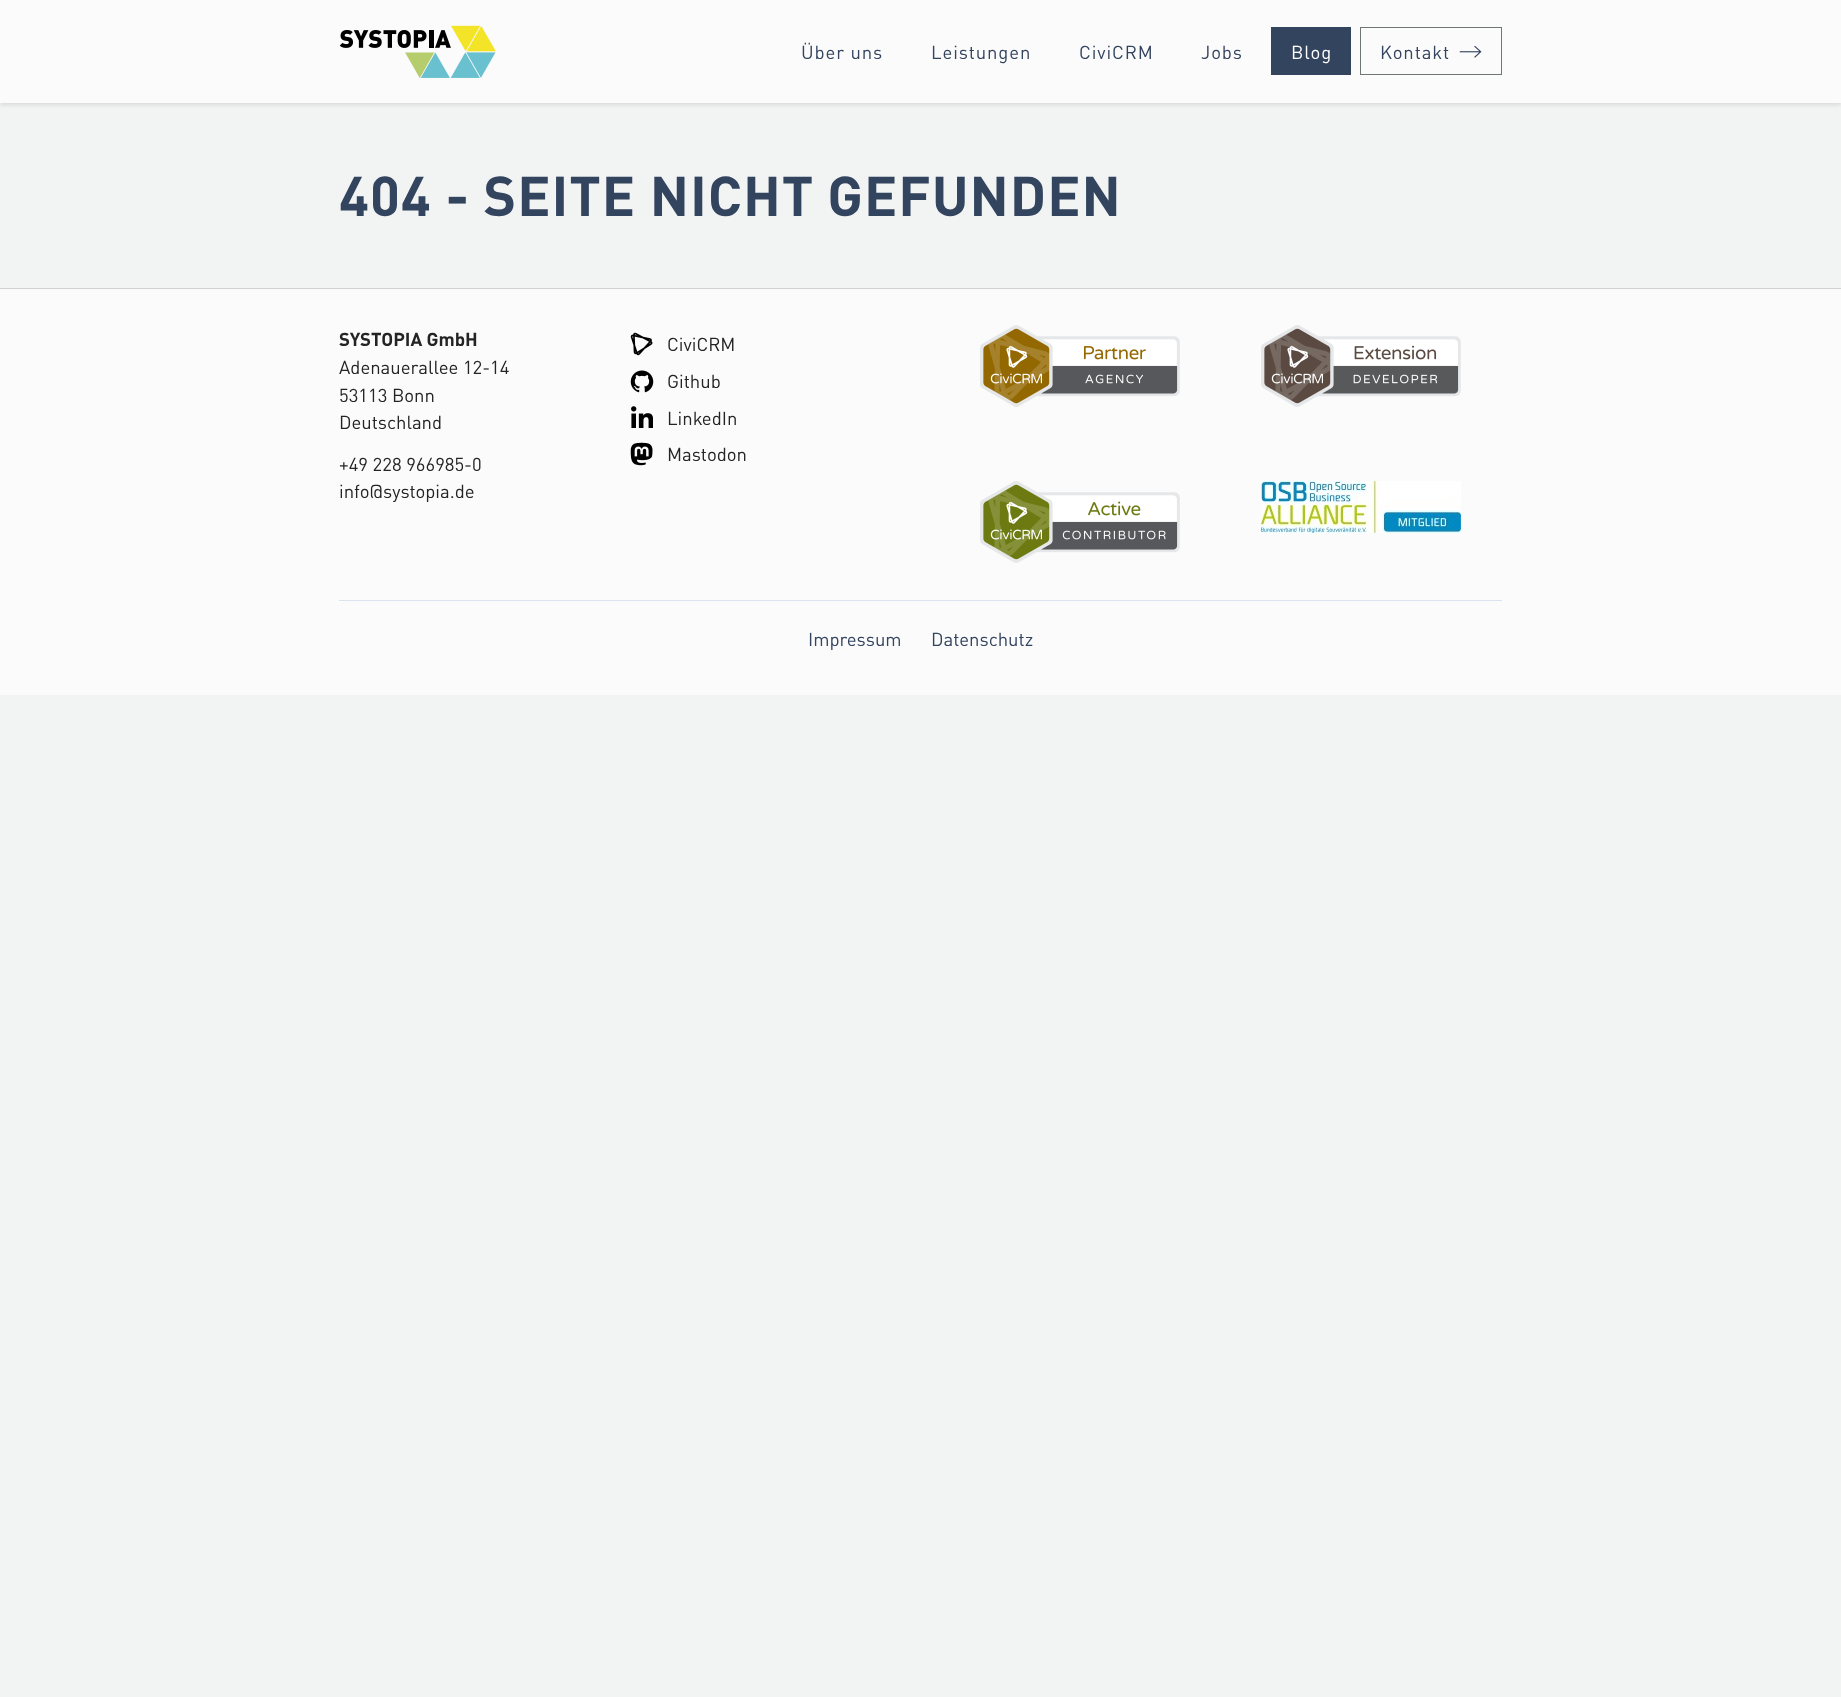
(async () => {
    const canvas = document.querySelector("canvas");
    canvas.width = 1841;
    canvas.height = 1697;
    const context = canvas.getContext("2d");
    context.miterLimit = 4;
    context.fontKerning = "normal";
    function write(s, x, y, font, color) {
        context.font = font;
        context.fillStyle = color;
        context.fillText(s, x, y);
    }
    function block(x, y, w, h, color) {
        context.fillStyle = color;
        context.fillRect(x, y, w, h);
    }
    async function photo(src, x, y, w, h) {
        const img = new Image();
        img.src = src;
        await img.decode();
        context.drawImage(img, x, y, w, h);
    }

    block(0, 0, 1841, 1697, "rgb(242, 243, 243)");
    context.fillStyle = "rgba(0, 0, 0, 0.1)";
    context.filter = "blur(2px)";
    context.beginPath();
    context.rect(0, 2, 1841, 103);
    context.fill();
    context.filter = "none";
    block(0, 0, 1841, 103, "rgb(251, 251, 251)");
    await photo("media/1.png", 339, 25, 157, 53);
    context.letterSpacing = "0.9px";
    write("Über uns", 801, 59, "18.5px DIN", "rgb(51, 68, 95)");
    write("Leistungen", 931, 59, "18.5px DIN", "rgb(51, 68, 95)");
    write("CiviCRM", 1079, 59, "18.5px DIN", "rgb(51, 68, 95)");
    write("Jobs", 1201, 59, "18.5px DIN", "rgb(51, 68, 95)");
    block(1271, 27, 80, 48, "rgb(51, 68, 95)");
    write("Blog", 1291, 59, "18.5px DIN", "rgb(255, 255, 255)");
    await photo("media/2.png", 1459, 45, 23, 13);
    context.strokeStyle = "rgb(112, 117, 117)";
    context.strokeRect(1360.5, 27.5, 141, 47);
    write("Kontakt", 1380, 59, "18.5px DIN", "rgb(51, 68, 95)");
    write("404 - SEITE NICHT GEFUNDEN", 339, 216, "bold 55.25px DIN", "rgb(51, 68, 95)");
    block(0, 289, 1841, 406, "rgb(251, 251, 251)");
    block(0, 288, 1841, 1, "rgb(208, 210, 210)");
    context.letterSpacing = "0px";
    write("SYSTOPIA GmbH", 339, 346, "bold 18.5px DIN", "rgb(36, 36, 36)");
    write("Adenauerallee 12-14", 339, 374, "18.5px DIN", "rgb(36, 36, 36)");
    write("53113 Bonn", 339, 402, "18.5px DIN", "rgb(36, 36, 36)");
    write("Deutschland", 339, 429, "18.5px DIN", "rgb(36, 36, 36)");
    write("+49 228 966985-0", 339, 471, "18.5px DIN", "rgb(36, 36, 36)");
    write("info@systopia.de", 339, 498, "18.5px DIN", "rgb(36, 36, 36)");
    await photo("media/3.png", 630, 332, 23, 24);
    write("CiviCRM", 667, 351, "18.5px DIN", "rgb(36, 36, 36)");
    await photo("media/4.png", 630, 370, 24, 23);
    write("Github", 667, 388, "18.5px DIN", "rgb(36, 36, 36)");
    await photo("media/5.png", 631, 406, 22, 22);
    write("LinkedIn", 667, 425, "18.5px DIN", "rgb(36, 36, 36)");
    await photo("media/6.png", 630, 442, 23, 24);
    write("Mastodon", 667, 461, "18.5px DIN", "rgb(36, 36, 36)");
    await photo("media/7.png", 980, 325, 200, 82);
    await photo("media/8.png", 1261, 325, 200, 82);
    await photo("media/9.png", 980, 481, 200, 82);
    await photo("media/10.png", 1261, 481, 200, 52);
    block(339, 600, 1163, 1, "rgb(219, 227, 240)");
    write("Impressum", 808, 646, "18.5px DIN", "rgb(51, 68, 95)");
    write("Datenschutz", 931, 646, "18.5px DIN", "rgb(51, 68, 95)");
})();
